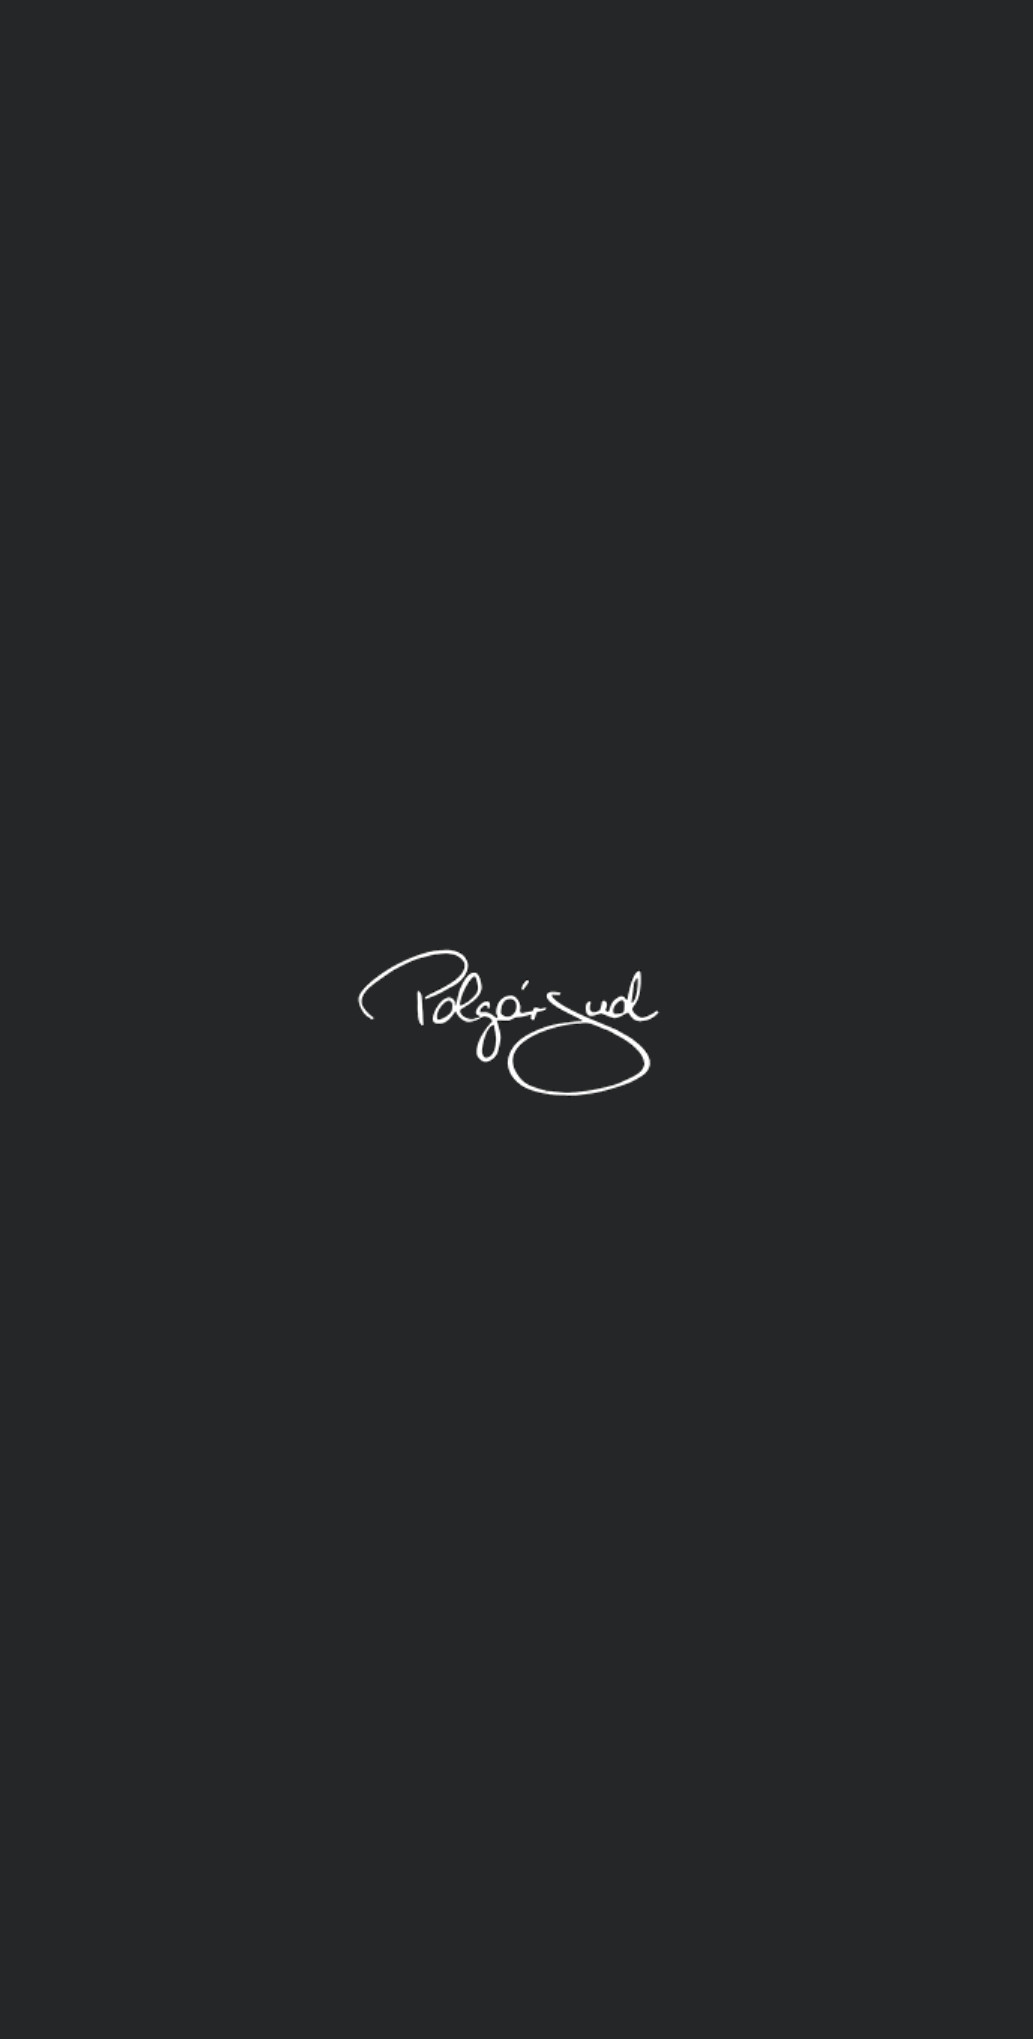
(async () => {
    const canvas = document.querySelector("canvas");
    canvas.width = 1033;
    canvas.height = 2039;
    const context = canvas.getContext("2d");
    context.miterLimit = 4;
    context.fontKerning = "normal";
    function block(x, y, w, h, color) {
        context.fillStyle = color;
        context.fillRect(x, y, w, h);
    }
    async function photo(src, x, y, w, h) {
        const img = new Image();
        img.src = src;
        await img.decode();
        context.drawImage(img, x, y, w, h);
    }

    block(0, 0, 1033, 2039, "rgb(36, 38, 39)");
    await photo("media/1.png", 357, 948, 303, 150);
})();
